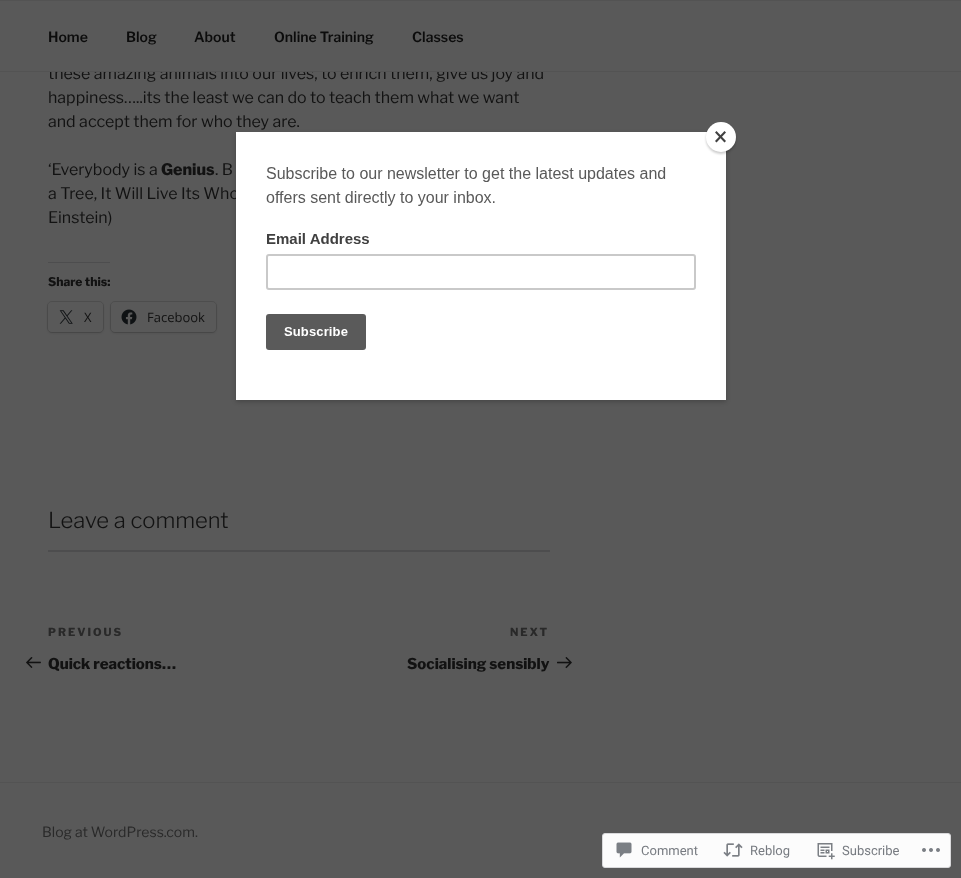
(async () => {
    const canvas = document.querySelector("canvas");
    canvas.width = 961;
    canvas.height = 878;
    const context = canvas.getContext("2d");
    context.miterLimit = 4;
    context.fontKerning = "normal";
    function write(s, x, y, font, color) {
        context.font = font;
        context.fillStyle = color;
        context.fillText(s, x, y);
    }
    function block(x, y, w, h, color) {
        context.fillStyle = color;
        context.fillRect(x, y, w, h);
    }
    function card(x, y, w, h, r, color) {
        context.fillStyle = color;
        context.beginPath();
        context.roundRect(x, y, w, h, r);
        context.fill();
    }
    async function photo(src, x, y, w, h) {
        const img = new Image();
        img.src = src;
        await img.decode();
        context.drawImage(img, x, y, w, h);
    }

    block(0, 0, 961, 878, "rgb(89, 89, 89)");
    write("these amazing animals into our lives, to enrich them, give us joy and", 48, 79, "100 16px 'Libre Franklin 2'", "rgb(18, 18, 18)");
    block(48, 67, 495, 4, "rgb(89, 89, 89)");
    block(0, 0, 961, 1, "rgb(83, 83, 83)");
    block(0, 71, 961, 1, "rgb(83, 83, 83)");
    write("Home", 48, 42, "100 14px 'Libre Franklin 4'", "rgb(12, 12, 12)");
    write("Blog", 126, 42, "100 14px 'Libre Franklin 4'", "rgb(12, 12, 12)");
    write("About", 194, 42, "100 14px 'Libre Franklin 4'", "rgb(12, 12, 12)");
    write("Online Training", 274, 42, "100 14px 'Libre Franklin 4'", "rgb(12, 12, 12)");
    write("Classes", 412, 42, "100 14px 'Libre Franklin 4'", "rgb(12, 12, 12)");
    write("happiness…..its the least we can do to teach them what we want", 48, 103, "100 16px 'Libre Franklin 2'", "rgb(18, 18, 18)");
    write("and accept them for who they are.", 48, 127, "100 16px 'Libre Franklin 2'", "rgb(18, 18, 18)");
    write("‘Everybody is a", 48, 175, "100 16px 'Libre Franklin 2'", "rgb(18, 18, 18)");
    write("Genius", 161, 175, "100 16px Libre Franklin", "rgb(18, 18, 18)");
    write(". B", 215, 175, "100 16px 'Libre Franklin 2'", "rgb(18, 18, 18)");
    write("a Tree, It Will Live Its Who", 48, 199, "100 16px 'Libre Franklin 2'", "rgb(18, 18, 18)");
    write("Einstein)", 48, 223, "100 16px 'Libre Franklin 2'", "rgb(18, 18, 18)");
    block(48, 262, 62, 1, "rgb(77, 77, 78)");
    write("Share this:", 48, 286, "100 12px Libre Franklin", "rgb(18, 18, 18)");
    context.beginPath();
    context.roundRect(47.5, 301.5, 56, 31, 4.5);
    context.strokeStyle = "rgb(78, 78, 78)";
    context.stroke();
    context.fillStyle = "rgba(0, 0, 0, 0.12)";
    context.filter = "blur(1px)";
    context.beginPath();
    context.roundRect(48, 303, 55, 30, 4);
    context.fill();
    context.filter = "none";
    card(48, 302, 55, 30, 4, "rgb(89, 89, 89)");
    await photo("media/1.png", 59, 310, 14, 14);
    write("X", 84, 322, "13px Open Sans", "rgb(18, 18, 18)");
    context.beginPath();
    context.roundRect(110.5, 301.5, 106, 31, 4.5);
    context.stroke();
    context.fillStyle = "rgba(0, 0, 0, 0.12)";
    context.filter = "blur(1px)";
    context.beginPath();
    context.roundRect(111, 303, 105, 30, 4);
    context.fill();
    context.filter = "none";
    card(111, 302, 105, 30, 4, "rgb(89, 89, 89)");
    await photo("media/2.png", 121, 309, 16, 16);
    write("Facebook", 147, 322, "13px Open Sans", "rgb(18, 18, 18)");
    write("Leave a comment", 48, 528, "100 22px 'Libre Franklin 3'", "rgb(18, 18, 18)");
    block(48, 550, 502, 2, "rgb(77, 77, 78)");
    context.letterSpacing = "2px";
    write("PREVIOUS", 48, 636, "100 11px Libre Franklin", "rgb(41, 41, 41)");
    await photo("media/3.png", 26, 657, 15, 11);
    context.letterSpacing = "0px";
    write("Quick reactions…", 48, 669, "100 15px Libre Franklin", "rgb(18, 18, 18)");
    context.letterSpacing = "2px";
    write("NEXT", 510, 636, "100 11px Libre Franklin", "rgb(41, 41, 41)");
    context.letterSpacing = "0px";
    write("Socialising sensibly", 407, 669, "100 15px Libre Franklin", "rgb(18, 18, 18)");
    await photo("media/4.png", 557, 657, 15, 12);
    block(0, 782, 961, 1, "rgb(83, 83, 83)");
    write("Blog at WordPress.com.", 42, 837, "100 14px 'Libre Franklin 2'", "rgb(41, 41, 41)");
    context.fillStyle = "rgba(0, 0, 0, 0.2)";
    context.filter = "blur(2px)";
    context.beginPath();
    context.rect(236, 134, 490, 268);
    context.fill();
    context.filter = "none";
    await photo("media/5.png", 236, 132, 490, 268);
    context.filter = "blur(1px)";
    context.beginPath();
    context.roundRect(706, 124, 30, 30, 15);
    context.fill();
    context.filter = "none";
    context.fillStyle = "rgb(255, 255, 255)";
    context.beginPath();
    context.arc(721, 137, 15, 0, Math.PI * 2);
    context.fill();
    context.fillStyle = "rgb(65, 65, 65)";
    context.beginPath();
    context.moveTo(724.5, 131);
    context.lineTo(726, 132.5);
    context.lineTo(716.5, 142.5);
    context.lineTo(715, 141);
    context.closePath();
    context.fill();
    context.beginPath();
    context.moveTo(715, 132.5);
    context.lineTo(716.5, 131);
    context.lineTo(726, 141);
    context.lineTo(724.5, 142.5);
    context.closePath();
    context.fill();
    context.fillStyle = "rgb(252, 252, 252)";
    context.beginPath();
    context.roundRect(602.5, 833.5, 348, 34, 2.5);
    context.fill();
    context.strokeStyle = "rgb(217, 217, 219)";
    context.stroke();
    await photo("media/6.png", 616, 842, 16, 16);
    write("Comment", 641, 855, "13px Roboto", "rgb(119, 123, 129)");
    await photo("media/7.png", 723, 843, 20, 14);
    write("Reblog", 750, 855, "13px Roboto", "rgb(119, 123, 129)");
    await photo("media/8.png", 817, 843, 18, 17);
    write("Subscribe", 842, 855, "13px Roboto", "rgb(119, 123, 129)");
    await photo("media/9.png", 922, 848, 18, 4);
})();
